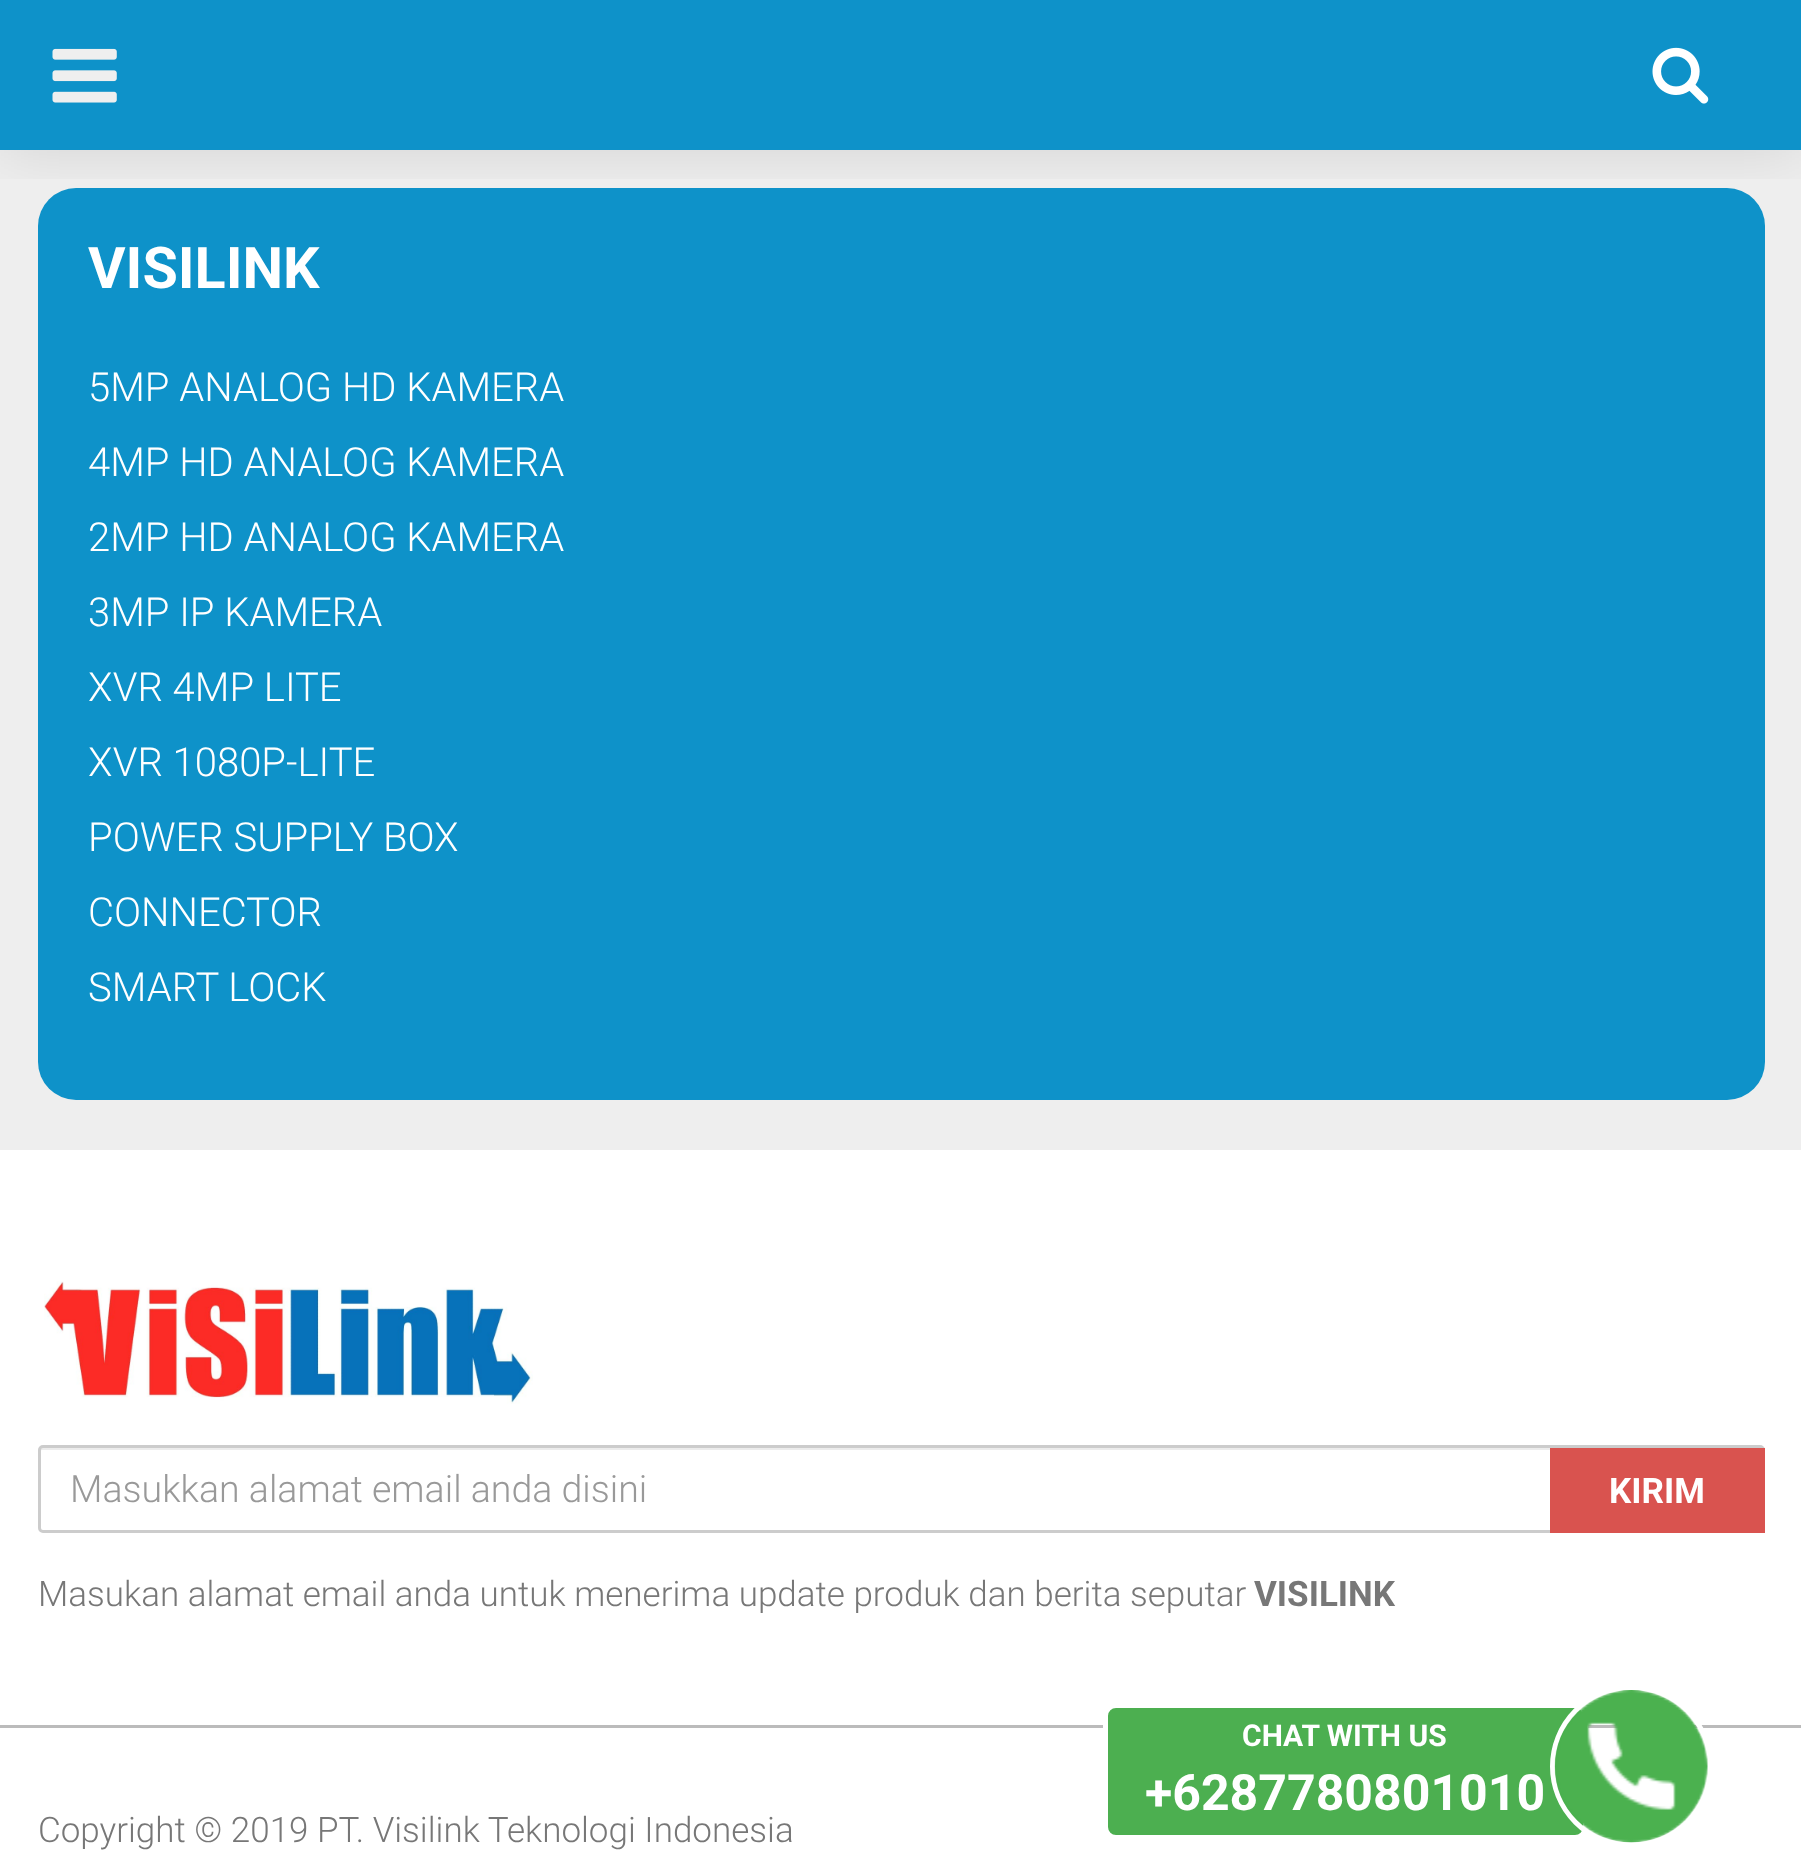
(async () => {
    const canvas = document.querySelector("canvas");
    canvas.width = 1801;
    canvas.height = 1865;
    const context = canvas.getContext("2d");
    context.miterLimit = 4;
    context.fontKerning = "normal";
    function write(s, x, y, font, color) {
        context.font = font;
        context.fillStyle = color;
        context.fillText(s, x, y);
    }
    function block(x, y, w, h, color) {
        context.fillStyle = color;
        context.fillRect(x, y, w, h);
    }
    function card(x, y, w, h, r, color) {
        context.fillStyle = color;
        context.beginPath();
        context.roundRect(x, y, w, h, r);
        context.fill();
    }
    async function photo(src, x, y, w, h) {
        const img = new Image();
        img.src = src;
        await img.decode();
        context.drawImage(img, x, y, w, h);
    }

    block(0, 0, 1801, 1865, "rgb(255, 255, 255)");
    block(0, 0, 1801, 150, "rgb(14, 146, 201)");
    block(0, 150, 1801, 1000, "rgb(238, 238, 238)");
    card(38, 188, 1727, 912, 38, "rgb(14, 146, 201)");
    context.save();
    context.beginPath();
    context.rect(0, 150, 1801, 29);
    context.clip();
    context.fillStyle = "rgba(0, 0, 0, 0.1)";
    context.filter = "blur(31px)";
    context.beginPath();
    context.rect(0, 3, 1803, 150);
    context.fill();
    context.filter = "none";
    context.restore();
    await photo("media/1.png", 52, 48, 65, 55);
    await photo("media/2.png", 1652, 47, 57, 57);
    write("VISILINK", 88, 288, "bold 57.5px Roboto", "rgb(255, 255, 255)");
    write("5MP ANALOG HD KAMERA", 88, 401, "300 40px Roboto", "rgb(255, 255, 255)");
    write("4MP HD ANALOG KAMERA", 88, 476, "300 40px Roboto", "rgb(255, 255, 255)");
    write("2MP HD ANALOG KAMERA", 88, 551, "300 40px Roboto", "rgb(255, 255, 255)");
    write("3MP IP KAMERA", 88, 626, "300 40px Roboto", "rgb(255, 255, 255)");
    write("XVR 4MP LITE", 88, 701, "300 40px Roboto", "rgb(255, 255, 255)");
    write("XVR 1080P-LITE", 88, 776, "300 40px Roboto", "rgb(255, 255, 255)");
    write("POWER SUPPLY BOX", 88, 851, "300 40px Roboto", "rgb(255, 255, 255)");
    write("CONNECTOR", 88, 926, "300 40px Roboto", "rgb(255, 255, 255)");
    write("SMART LOCK", 88, 1001, "300 40px Roboto", "rgb(255, 255, 255)");
    block(0, 1725, 1801, 3, "rgb(187, 187, 187)");
    await photo("media/3.png", 44, 1281, 489, 123);
    context.fillStyle = "rgb(236, 236, 236)";
    context.beginPath();
    context.moveTo(42, 1450);
    context.lineTo(1760, 1450);
    context.bezierCurveTo(1761, 1450, 1762, 1451, 1762, 1452);
    context.lineTo(1762, 1530);
    context.bezierCurveTo(1763, 1529, 1763, 1528, 1763, 1528);
    context.lineTo(1763, 1450);
    context.bezierCurveTo(1763, 1449, 1762, 1448, 1760, 1448);
    context.lineTo(42, 1448);
    context.bezierCurveTo(41, 1448, 40, 1449, 40, 1450);
    context.lineTo(40, 1452);
    context.bezierCurveTo(40, 1451, 41, 1450, 42, 1450);
    context.closePath();
    context.fill();
    context.beginPath();
    context.roundRect(39.5, 1446.5, 1724, 85, 3.5);
    context.strokeStyle = "rgb(204, 204, 204)";
    context.lineWidth = 3;
    context.stroke();
    write("Masukkan alamat email anda disini", 70, 1502, "300 37.5px Roboto", "rgb(153, 153, 153)");
    block(1550, 1448, 215, 85, "rgb(217, 83, 79)");
    write("KIRIM", 1609, 1503, "bold 35px Roboto", "rgb(255, 255, 255)");
    write("Masukan alamat email anda untuk menerima update produk dan berita seputar", 38, 1606, "300 35px Roboto", "rgb(119, 119, 119)");
    write("VISILINK", 1254, 1606, "bold 35px Roboto", "rgb(119, 119, 119)");
    write("Copyright © 2019 PT. Visilink Teknologi Indonesia", 38, 1842, "300 35px Roboto", "rgb(119, 119, 119)");
    context.fillStyle = "rgb(76, 175, 80)";
    context.beginPath();
    context.roundRect(1105.5, 1705.5, 480, 132, 10.5);
    context.fill();
    context.strokeStyle = "rgb(255, 255, 255)";
    context.lineWidth = 5;
    context.stroke();
    write("CHAT WITH US", 1242, 1746, "bold 30px Roboto", "rgb(255, 255, 255)");
    write("+6287780801010", 1145, 1810, "bold 50px Roboto", "rgb(255, 255, 255)");
    context.beginPath();
    context.arc(1631.5, 1766.5, 79, 0, Math.PI * 2);
    context.stroke();
    await photo("media/4.png", 1554, 1690, 154, 153);
})();
